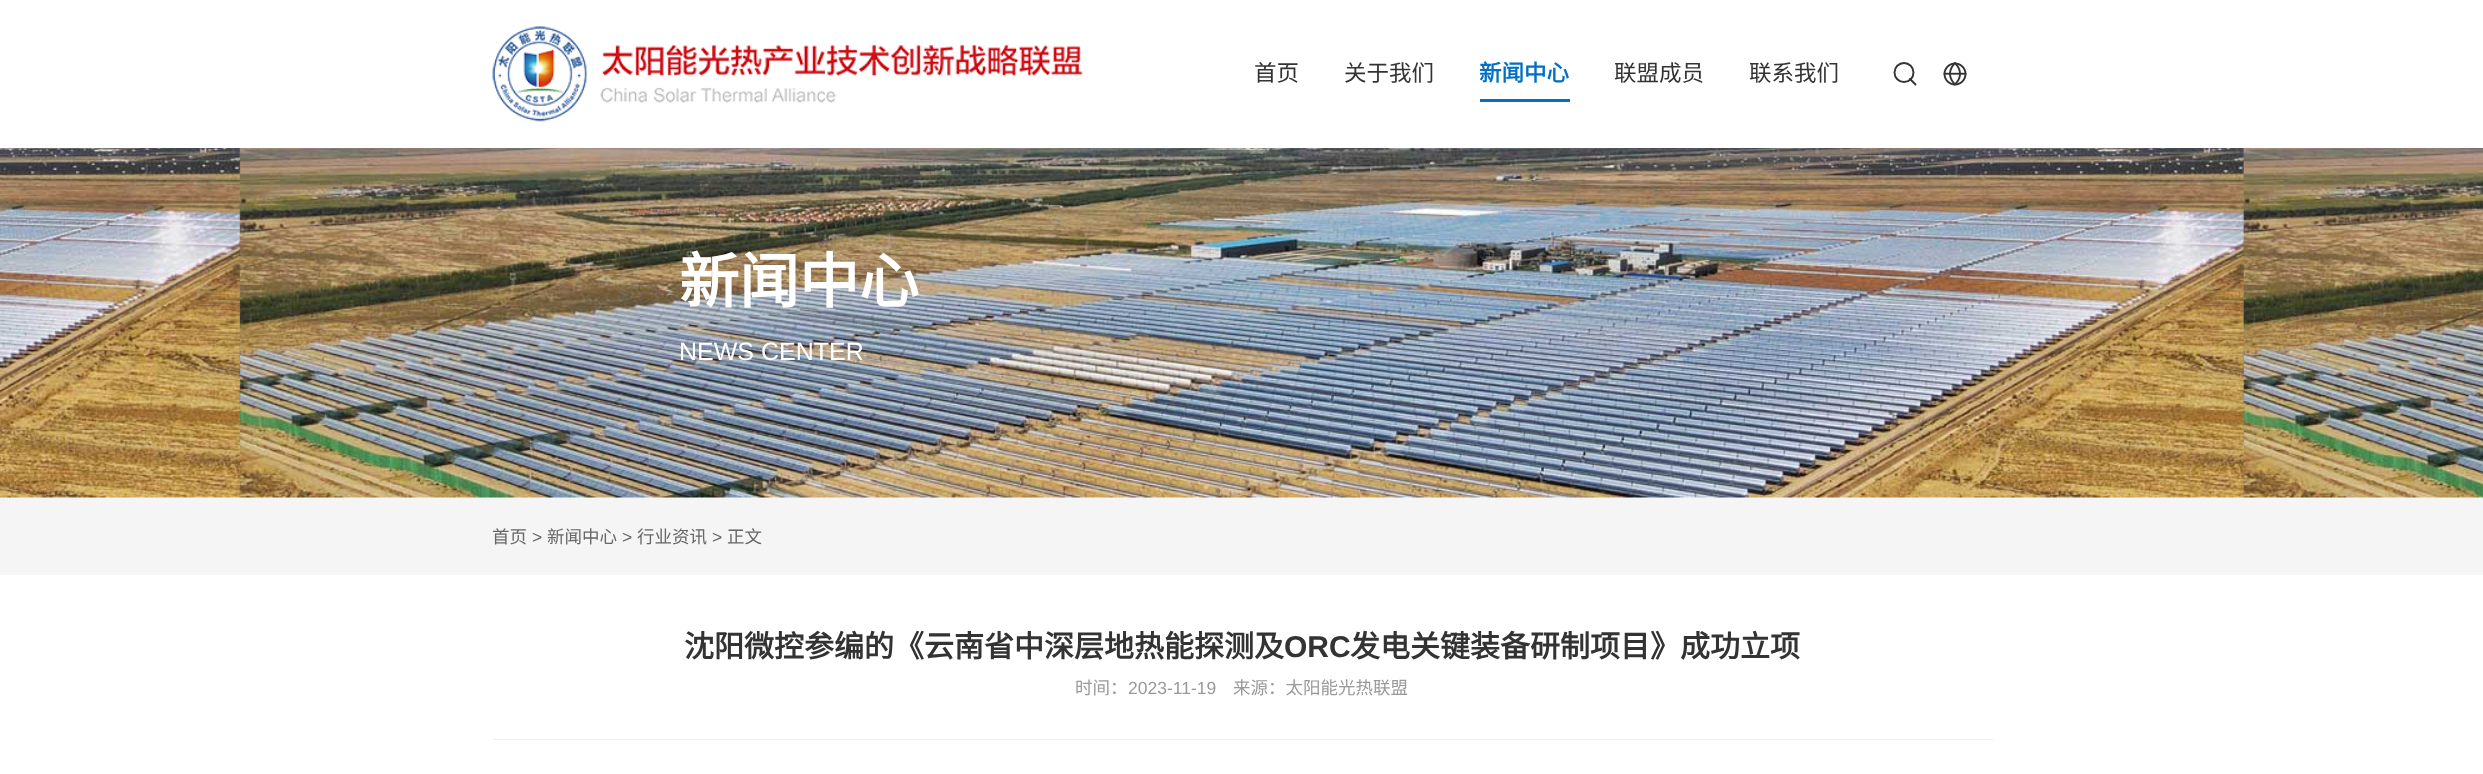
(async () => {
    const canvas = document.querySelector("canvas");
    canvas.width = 2483;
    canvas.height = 774;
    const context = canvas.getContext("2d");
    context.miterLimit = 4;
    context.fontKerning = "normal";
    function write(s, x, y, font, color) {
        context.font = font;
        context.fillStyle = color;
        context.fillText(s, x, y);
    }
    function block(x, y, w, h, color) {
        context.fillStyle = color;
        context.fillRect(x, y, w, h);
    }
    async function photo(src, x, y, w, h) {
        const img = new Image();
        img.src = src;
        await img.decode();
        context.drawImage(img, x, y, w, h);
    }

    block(0, 0, 2483, 774, "rgb(255, 255, 255)");
    await photo("media/1.png", 492, 26, 591, 96);
    write("首页", 1254, 81, "22.5px Noto Sans CJK SC", "rgb(51, 51, 51)");
    write("关于我们", 1344, 81, "22.5px Noto Sans CJK SC", "rgb(51, 51, 51)");
    write("新闻中心", 1479, 81, "bold 22.5px Noto Sans CJK SC", "rgb(0, 111, 197)");
    block(1480, 99, 90, 3, "rgb(0, 111, 197)");
    write("联盟成员", 1614, 81, "22.5px Noto Sans CJK SC", "rgb(51, 51, 51)");
    write("联系我们", 1749, 81, "22.5px Noto Sans CJK SC", "rgb(51, 51, 51)");
    context.beginPath();
    context.arc(1904, 72.5, 9.5, 0, Math.PI * 2);
    context.strokeStyle = "rgb(51, 51, 51)";
    context.lineWidth = 1.9;
    context.stroke();
    context.beginPath();
    context.moveTo(1910, 79);
    context.lineTo(1915.5, 84.5);
    context.lineCap = "round";
    context.stroke();
    await photo("media/2.png", 1943, 62, 24, 24);
    block(0, 497, 2483, 78, "rgb(245, 245, 245)");
    await photo("media/3.png", 0, 148, 2483, 350);
    write("新闻中心", 679, 303, "bold 60px Noto Sans CJK SC", "rgb(255, 255, 255)");
    write("NEWS CENTER", 679, 360, "25px Liberation Sans", "rgb(255, 255, 255)");
    write("首页", 492, 543, "17.5px Noto Sans CJK SC", "rgb(102, 102, 102)");
    write(">", 532, 543, "17.5px Liberation Sans", "rgb(102, 102, 102)");
    write("新闻中心", 547, 543, "17.5px Noto Sans CJK SC", "rgb(102, 102, 102)");
    write(">", 622, 543, "17.5px Liberation Sans", "rgb(102, 102, 102)");
    write("行业资讯", 637, 543, "17.5px Noto Sans CJK SC", "rgb(102, 102, 102)");
    write(">", 712, 543, "17.5px Liberation Sans", "rgb(102, 102, 102)");
    write("正文", 727, 543, "17.5px Noto Sans CJK SC", "rgb(102, 102, 102)");
    block(493, 739, 1500, 1, "rgb(238, 238, 238)");
    write("沈阳微控参编的《云南省中深层地热能探测及", 684, 657, "bold 30px Noto Sans CJK SC", "rgb(51, 51, 51)");
    write("ORC", 1284, 657, "bold 30px Liberation Sans", "rgb(51, 51, 51)");
    write("发电关键装备研制项目》成功立项", 1350, 657, "bold 30px Noto Sans CJK SC", "rgb(51, 51, 51)");
    write("时间：", 1075, 694, "17.5px Noto Sans CJK SC", "rgb(153, 153, 153)");
    write("2023-11-19", 1128, 694, "17.5px Liberation Sans", "rgb(153, 153, 153)");
    write("来源：太阳能光热联盟", 1233, 694, "17.5px Noto Sans CJK SC", "rgb(153, 153, 153)");
})();
